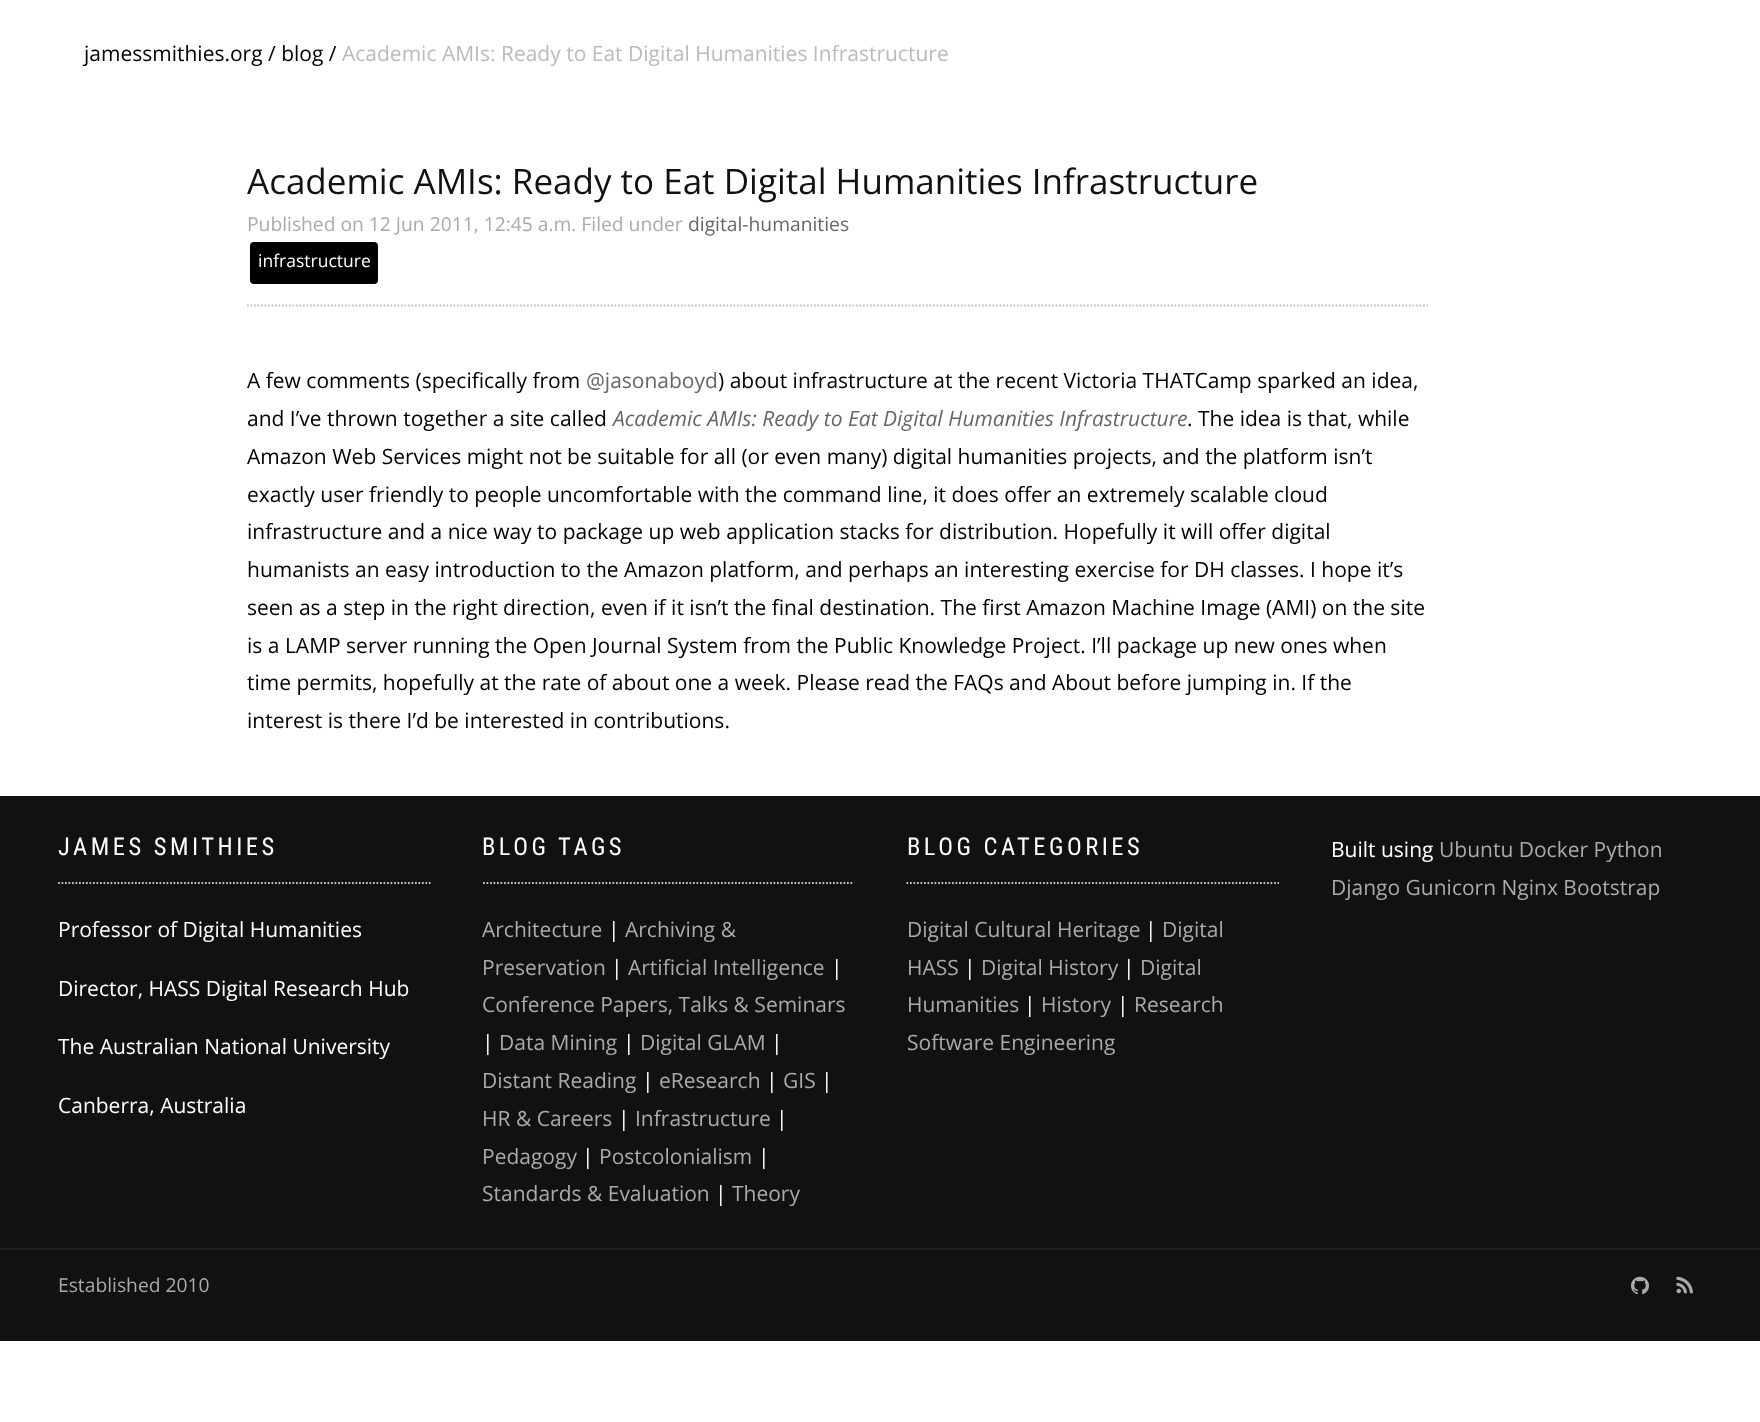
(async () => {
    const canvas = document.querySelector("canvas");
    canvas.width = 1760;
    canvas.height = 1422;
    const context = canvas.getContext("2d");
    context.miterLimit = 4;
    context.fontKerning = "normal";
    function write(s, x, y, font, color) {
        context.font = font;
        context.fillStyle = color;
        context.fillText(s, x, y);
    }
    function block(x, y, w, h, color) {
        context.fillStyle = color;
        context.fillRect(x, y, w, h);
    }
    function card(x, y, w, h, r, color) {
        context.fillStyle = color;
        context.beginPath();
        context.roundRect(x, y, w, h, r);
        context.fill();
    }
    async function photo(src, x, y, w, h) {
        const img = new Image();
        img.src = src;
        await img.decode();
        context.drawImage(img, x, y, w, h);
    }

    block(0, 0, 1760, 1422, "rgb(255, 255, 255)");
    write("jamessmithies.org / blog /", 84, 61, "21px Open Sans", "rgb(0, 0, 0)");
    write("Academic AMIs: Ready to Eat Digital Humanities Infrastructure", 342, 61, "21px Open Sans", "rgb(187, 187, 187)");
    write("Academic AMIs: Ready to Eat Digital Humanities Infrastructure", 247, 194, "35px Open Sans", "rgb(17, 17, 17)");
    write("Published on 12 Jun 2011, 12:45 a.m. Filed under", 247, 231, "19.25px Open Sans", "rgb(170, 170, 170)");
    write("digital-humanities", 688, 231, "19.25px Open Sans", "rgb(102, 102, 102)");
    card(250, 242, 128, 42, 4, "rgb(0, 0, 0)");
    write("infrastructure", 258, 267, "17.5px Open Sans", "rgb(255, 255, 255)");
    context.beginPath();
    context.moveTo(247, 305.5);
    context.lineTo(1428, 305.5);
    context.strokeStyle = "rgb(194, 194, 194)";
    context.lineWidth = 1.8;
    context.setLineDash([1.75, 1.75]);
    context.stroke();
    write("A few comments (specifically from", 247, 388, "21px Open Sans", "rgb(0, 0, 0)");
    write("@jasonaboyd", 586, 388, "21px Open Sans", "rgb(102, 102, 102)");
    write(") about infrastructure at the recent Victoria THATCamp sparked an idea,", 718, 388, "21px Open Sans", "rgb(0, 0, 0)");
    write("and I’ve thrown together a site called", 247, 426, "21px Open Sans", "rgb(0, 0, 0)");
    write("Academic AMIs: Ready to Eat Digital Humanities Infrastructure", 613, 426, "italic 21px Open Sans", "rgb(102, 102, 102)");
    write(". The idea is that, while", 1187, 426, "21px Open Sans", "rgb(0, 0, 0)");
    write("Amazon Web Services might not be suitable for all (or even many) digital humanities projects, and the platform isn’t", 247, 464, "21px Open Sans", "rgb(0, 0, 0)");
    write("exactly user friendly to people uncomfortable with the command line, it does offer an extremely scalable cloud", 247, 502, "21px Open Sans", "rgb(0, 0, 0)");
    write("infrastructure and a nice way to package up web application stacks for distribution. Hopefully it will offer digital", 247, 539, "21px Open Sans", "rgb(0, 0, 0)");
    write("humanists an easy introduction to the Amazon platform, and perhaps an interesting exercise for DH classes. I hope it’s", 247, 577, "21px Open Sans", "rgb(0, 0, 0)");
    write("seen as a step in the right direction, even if it isn’t the final destination. The first Amazon Machine Image (AMI) on the site", 247, 615, "21px Open Sans", "rgb(0, 0, 0)");
    write("is a LAMP server running the Open Journal System from the Public Knowledge Project. I’ll package up new ones when", 247, 653, "21px Open Sans", "rgb(0, 0, 0)");
    write("time permits, hopefully at the rate of about one a week. Please read the FAQs and About before jumping in. If the", 247, 690, "21px Open Sans", "rgb(0, 0, 0)");
    write("interest is there I’d be interested in contributions.", 247, 728, "21px Open Sans", "rgb(0, 0, 0)");
    block(0, 796, 1760, 452, "rgb(17, 17, 17)");
    context.beginPath();
    context.moveTo(58, 883);
    context.lineTo(430.5, 883);
    context.stroke();
    context.letterSpacing = "3.5px";
    write("JAMES SMITHIES", 58, 855, "24.5px Roboto Condensed", "rgb(255, 255, 255)");
    context.letterSpacing = "0px";
    write("Professor of Digital Humanities", 58, 937, "21px Open Sans", "rgb(255, 255, 255)");
    write("Director, HASS Digital Research Hub", 58, 996, "21px Open Sans", "rgb(255, 255, 255)");
    write("The Australian National University", 58, 1054, "21px Open Sans", "rgb(255, 255, 255)");
    write("Canberra, Australia", 58, 1113, "21px Open Sans", "rgb(255, 255, 255)");
    context.beginPath();
    context.moveTo(483, 883);
    context.lineTo(854, 883);
    context.stroke();
    context.letterSpacing = "3.5px";
    write("BLOG TAGS", 482, 855, "24.5px Roboto Condensed", "rgb(255, 255, 255)");
    context.letterSpacing = "0px";
    write("Architecture", 482, 937, "21px Open Sans", "rgb(170, 170, 170)");
    write("|", 608, 937, "21px Open Sans", "rgb(255, 255, 255)");
    write("Archiving &", 625, 937, "21px Open Sans", "rgb(170, 170, 170)");
    write("Preservation", 482, 975, "21px Open Sans", "rgb(170, 170, 170)");
    write("|", 611, 975, "21px Open Sans", "rgb(255, 255, 255)");
    write("Artificial Intelligence", 628, 975, "21px Open Sans", "rgb(170, 170, 170)");
    write("|", 831, 975, "21px Open Sans", "rgb(255, 255, 255)");
    write("Conference Papers, Talks & Seminars", 482, 1012, "21px Open Sans", "rgb(170, 170, 170)");
    write("|", 482, 1050, "21px Open Sans", "rgb(255, 255, 255)");
    write("Data Mining", 499, 1050, "21px Open Sans", "rgb(170, 170, 170)");
    write("|", 623, 1050, "21px Open Sans", "rgb(255, 255, 255)");
    write("Digital GLAM", 640, 1050, "21px Open Sans", "rgb(170, 170, 170)");
    write("|", 771, 1050, "21px Open Sans", "rgb(255, 255, 255)");
    write("Distant Reading", 482, 1088, "21px Open Sans", "rgb(170, 170, 170)");
    write("|", 642, 1088, "21px Open Sans", "rgb(255, 255, 255)");
    write("eResearch", 659, 1088, "21px Open Sans", "rgb(170, 170, 170)");
    write("|", 766, 1088, "21px Open Sans", "rgb(255, 255, 255)");
    write("GIS", 783, 1088, "21px Open Sans", "rgb(170, 170, 170)");
    write("|", 821, 1088, "21px Open Sans", "rgb(255, 255, 255)");
    write("HR & Careers", 482, 1126, "21px Open Sans", "rgb(170, 170, 170)");
    write("|", 618, 1126, "21px Open Sans", "rgb(255, 255, 255)");
    write("Infrastructure", 635, 1126, "21px Open Sans", "rgb(170, 170, 170)");
    write("|", 776, 1126, "21px Open Sans", "rgb(255, 255, 255)");
    write("Pedagogy", 482, 1164, "21px Open Sans", "rgb(170, 170, 170)");
    write("|", 582, 1164, "21px Open Sans", "rgb(255, 255, 255)");
    write("Postcolonialism", 599, 1164, "21px Open Sans", "rgb(170, 170, 170)");
    write("|", 758, 1164, "21px Open Sans", "rgb(255, 255, 255)");
    write("Standards & Evaluation", 482, 1201, "21px Open Sans", "rgb(170, 170, 170)");
    write("|", 715, 1201, "21px Open Sans", "rgb(255, 255, 255)");
    write("Theory", 732, 1201, "21px Open Sans", "rgb(170, 170, 170)");
    context.beginPath();
    context.moveTo(906.5, 883);
    context.lineTo(1279, 883);
    context.stroke();
    context.letterSpacing = "3.5px";
    write("BLOG CATEGORIES", 907, 855, "24.5px Roboto Condensed", "rgb(255, 255, 255)");
    context.letterSpacing = "0px";
    write("Digital Cultural Heritage", 907, 937, "21px Open Sans", "rgb(170, 170, 170)");
    write("|", 1145, 937, "21px Open Sans", "rgb(255, 255, 255)");
    write("Digital", 1162, 937, "21px Open Sans", "rgb(170, 170, 170)");
    write("HASS", 907, 975, "21px Open Sans", "rgb(170, 170, 170)");
    write("|", 964, 975, "21px Open Sans", "rgb(255, 255, 255)");
    write("Digital History", 981, 975, "21px Open Sans", "rgb(170, 170, 170)");
    write("|", 1123, 975, "21px Open Sans", "rgb(255, 255, 255)");
    write("Digital", 1140, 975, "21px Open Sans", "rgb(170, 170, 170)");
    write("Humanities", 907, 1012, "21px Open Sans", "rgb(170, 170, 170)");
    write("|", 1024, 1012, "21px Open Sans", "rgb(255, 255, 255)");
    write("History", 1041, 1012, "21px Open Sans", "rgb(170, 170, 170)");
    write("|", 1117, 1012, "21px Open Sans", "rgb(255, 255, 255)");
    write("Research", 1134, 1012, "21px Open Sans", "rgb(170, 170, 170)");
    write("Software Engineering", 907, 1050, "21px Open Sans", "rgb(170, 170, 170)");
    write("Built using", 1331, 857, "21px Open Sans", "rgb(255, 255, 255)");
    write("Ubuntu Docker Python", 1439, 857, "21px Open Sans", "rgb(170, 170, 170)");
    write("Django Gunicorn Nginx Bootstrap", 1331, 895, "21px Open Sans", "rgb(170, 170, 170)");
    block(0, 1248, 1760, 2, "rgb(32, 32, 32)");
    block(0, 1250, 1760, 91, "rgb(17, 17, 17)");
    write("Established 2010", 58, 1292, "19.25px Open Sans", "rgb(170, 170, 170)");
    await photo("media/1.png", 1631, 1276, 18, 19);
    await photo("media/2.png", 1676, 1276, 17, 18);
})();
